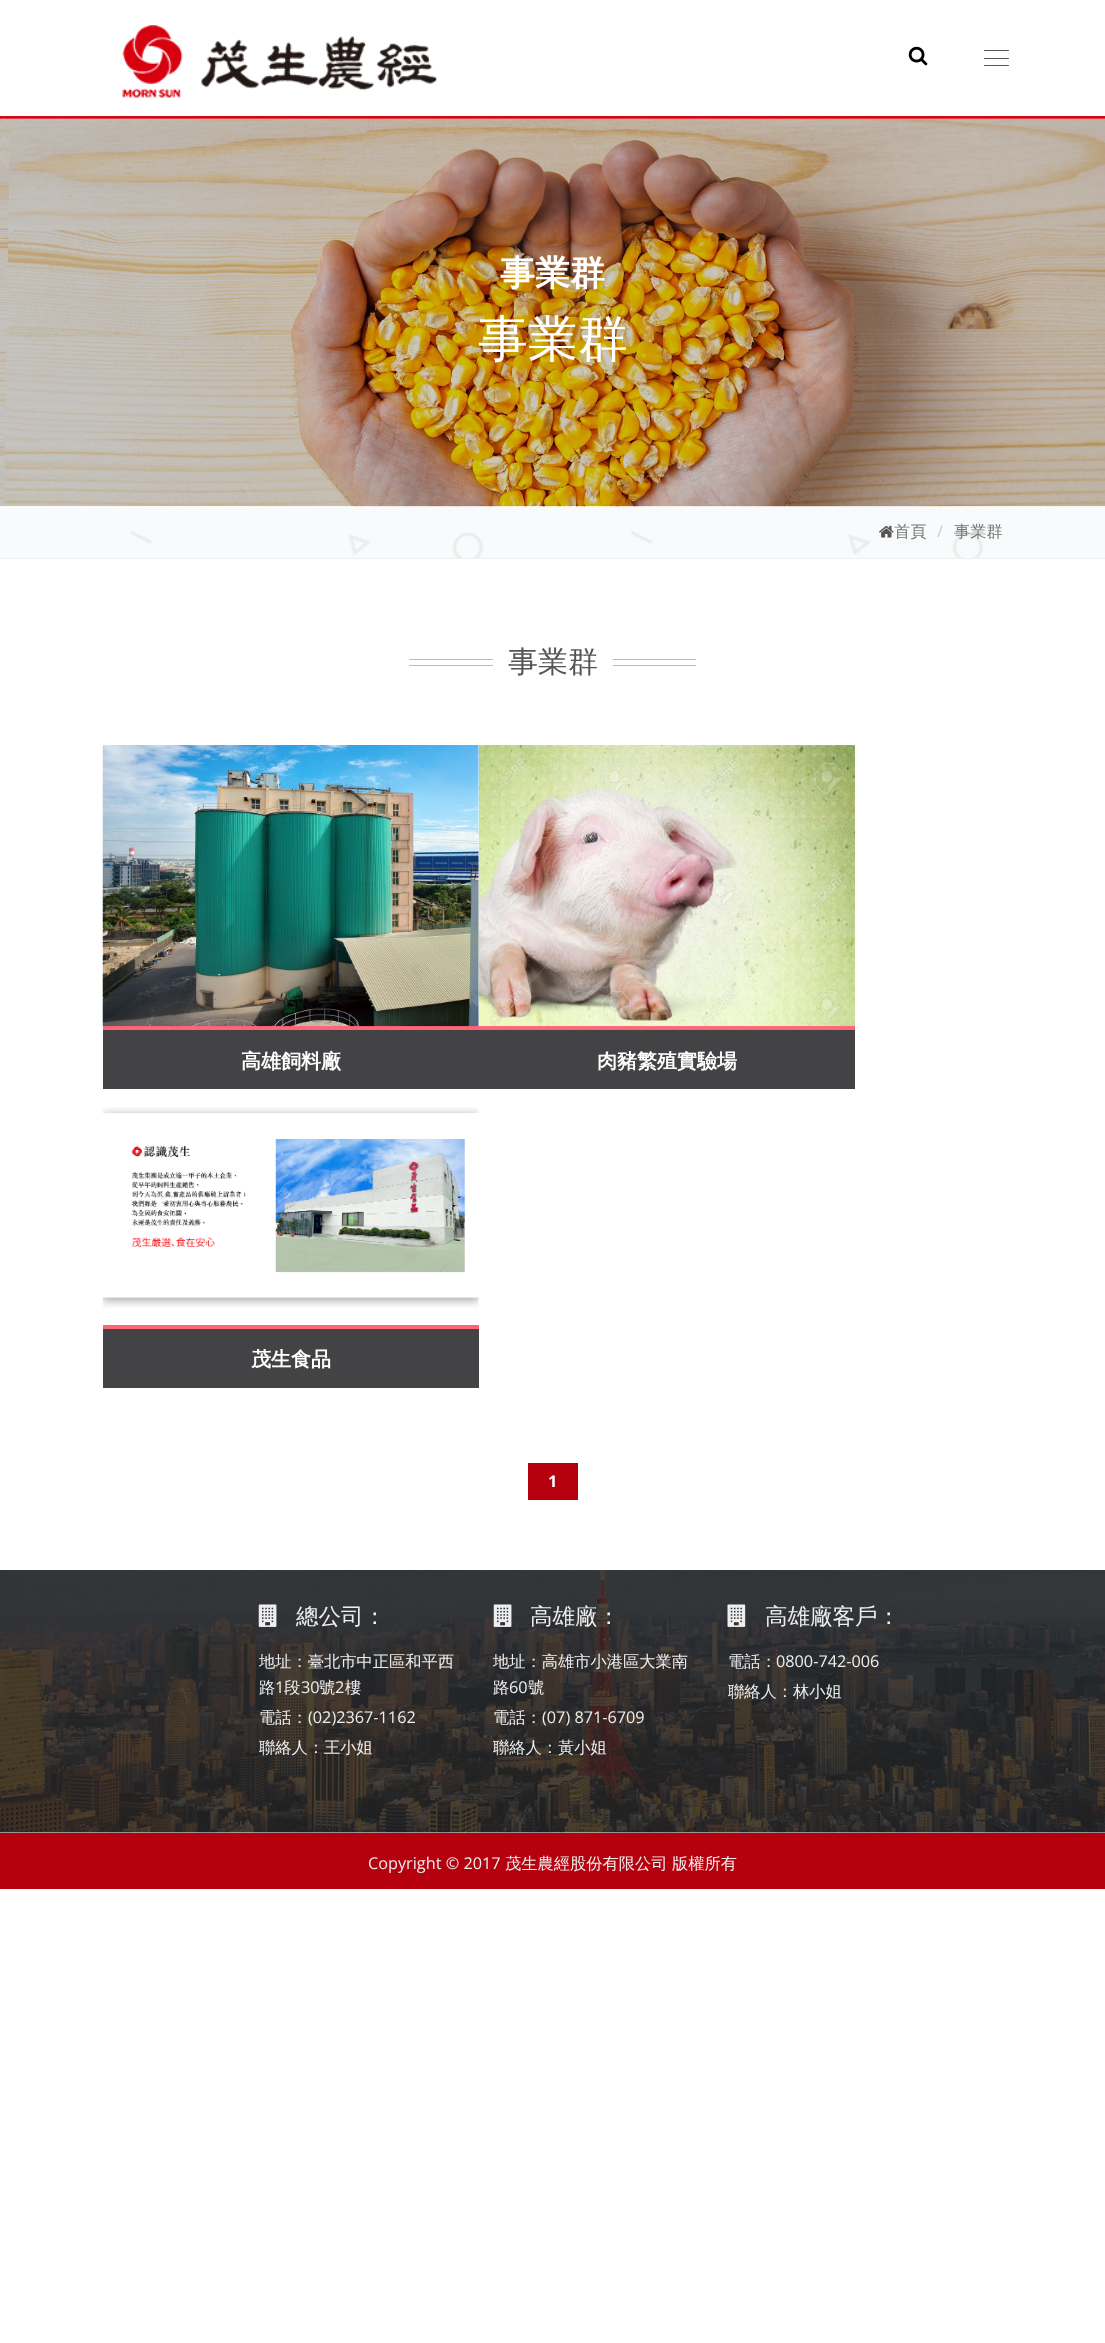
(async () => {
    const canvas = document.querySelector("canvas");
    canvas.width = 1105;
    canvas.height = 2343;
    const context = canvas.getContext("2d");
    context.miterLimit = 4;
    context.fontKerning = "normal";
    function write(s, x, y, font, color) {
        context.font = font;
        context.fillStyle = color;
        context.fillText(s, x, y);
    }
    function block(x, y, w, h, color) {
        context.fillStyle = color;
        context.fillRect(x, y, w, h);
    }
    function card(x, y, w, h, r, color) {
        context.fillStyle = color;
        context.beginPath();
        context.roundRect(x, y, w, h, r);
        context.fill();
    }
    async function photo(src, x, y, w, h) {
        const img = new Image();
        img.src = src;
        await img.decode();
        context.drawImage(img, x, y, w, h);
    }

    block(0, 0, 1105, 2343, "rgb(255, 255, 255)");
    block(0, 116, 1105, 3, "rgb(215, 6, 21)");
    await photo("media/1.png", 122, 25, 315, 73);
    await photo("media/2.png", 908, 46, 20, 20);
    card(984, 50, 25, 1, 0.5, "rgb(85, 85, 85)");
    card(984, 58, 25, 1, 0.5, "rgb(85, 85, 85)");
    card(984, 65, 25, 1, 0.5, "rgb(85, 85, 85)");
    await photo("media/4.png", 0, 506, 1105, 52);
    await photo("media/3.png", 0, 118, 1105, 389);
    write("事業群", 500, 285, "bold 35px WenQuanYi Zen Hei", "rgb(255, 255, 255)");
    write("事業群", 478, 356, "500 50px WenQuanYi Zen Hei", "rgb(255, 255, 255)");
    block(0, 558, 1105, 1, "rgb(238, 238, 238)");
    await photo("media/5.png", 879, 525, 15, 13);
    write("首頁", 894, 537, "500 16.25px WenQuanYi Zen Hei", "rgb(119, 119, 119)");
    write("/", 937, 537, "16.25px Open Sans", "rgb(204, 204, 204)");
    write("事業群", 954, 537, "500 16.25px WenQuanYi Zen Hei", "rgb(119, 119, 119)");
    block(409, 659, 84, 1, "rgb(187, 187, 187)");
    block(409, 665, 84, 1, "rgb(187, 187, 187)");
    write("事業群", 508, 672, "500 30px WenQuanYi Zen Hei", "rgb(85, 85, 85)");
    block(613, 659, 83, 1, "rgb(187, 187, 187)");
    block(613, 665, 83, 1, "rgb(187, 187, 187)");
    block(103, 1026, 752, 4, "rgb(255, 100, 121)");
    await photo("media/6.png", 102, 745, 377, 282);
    block(103, 1030, 752, 59, "rgb(67, 67, 69)");
    write("高雄飼料廠", 241, 1068, "bold 20px WenQuanYi Zen Hei", "rgb(255, 255, 255)");
    await photo("media/7.png", 478, 745, 377, 282);
    write("肉豬繁殖實驗場", 597, 1068, "bold 20px WenQuanYi Zen Hei", "rgb(255, 255, 255)");
    await photo("media/8.png", 102, 1107, 377, 201);
    block(103, 1329, 376, 59, "rgb(67, 67, 69)");
    block(103, 1325, 376, 4, "rgb(255, 100, 121)");
    write("茂生食品", 251, 1366, "bold 20px WenQuanYi Zen Hei", "rgb(255, 255, 255)");
    block(528, 1463, 50, 37, "rgb(183, 0, 13)");
    write("1", 548, 1487, "bold 16.25px Open Sans", "rgb(255, 255, 255)");
    await photo("media/9.png", 0, 1570, 1105, 263);
    await photo("media/10.png", 258, 1604, 19, 23);
    write("總公司：", 296, 1624, "500 22.5px WenQuanYi Zen Hei", "rgb(238, 238, 238)");
    write("地址：臺北市中正區和平西", 259, 1667, "500 16.25px WenQuanYi Zen Hei", "rgb(238, 238, 238)");
    write("路", 259, 1693, "500 16.25px WenQuanYi Zen Hei", "rgb(238, 238, 238)");
    write("1", 275, 1693, "16.25px Open Sans", "rgb(238, 238, 238)");
    write("段", 284, 1693, "500 16.25px WenQuanYi Zen Hei", "rgb(238, 238, 238)");
    write("30", 301, 1693, "16.25px Open Sans", "rgb(238, 238, 238)");
    write("號", 319, 1693, "500 16.25px WenQuanYi Zen Hei", "rgb(238, 238, 238)");
    write("2", 335, 1693, "16.25px Open Sans", "rgb(238, 238, 238)");
    write("樓", 345, 1693, "500 16.25px WenQuanYi Zen Hei", "rgb(238, 238, 238)");
    write("電話：", 259, 1723, "500 16.25px WenQuanYi Zen Hei", "rgb(238, 238, 238)");
    write("(02)2367-1162", 308, 1723, "16.25px Open Sans", "rgb(238, 238, 238)");
    write("聯絡人：王小姐", 259, 1753, "500 16.25px WenQuanYi Zen Hei", "rgb(238, 238, 238)");
    await photo("media/11.png", 493, 1604, 19, 23);
    write("高雄廠：", 530, 1624, "500 22.5px WenQuanYi Zen Hei", "rgb(238, 238, 238)");
    write("地址：高雄市小港區大業南", 493, 1667, "500 16.25px WenQuanYi Zen Hei", "rgb(238, 238, 238)");
    write("路", 493, 1693, "500 16.25px WenQuanYi Zen Hei", "rgb(238, 238, 238)");
    write("60", 509, 1693, "16.25px Open Sans", "rgb(238, 238, 238)");
    write("號", 528, 1693, "500 16.25px WenQuanYi Zen Hei", "rgb(238, 238, 238)");
    write("電話：", 493, 1723, "500 16.25px WenQuanYi Zen Hei", "rgb(238, 238, 238)");
    write("(07) 871-6709", 542, 1723, "16.25px Open Sans", "rgb(238, 238, 238)");
    write("聯絡人：黃小姐", 493, 1753, "500 16.25px WenQuanYi Zen Hei", "rgb(238, 238, 238)");
    await photo("media/12.png", 727, 1604, 19, 23);
    write("高雄廠客戶：", 765, 1624, "500 22.5px WenQuanYi Zen Hei", "rgb(238, 238, 238)");
    write("電話：", 728, 1667, "500 16.25px WenQuanYi Zen Hei", "rgb(238, 238, 238)");
    write("0800-742-006", 776, 1667, "16.25px Open Sans", "rgb(238, 238, 238)");
    write("聯絡人：林小姐", 728, 1697, "500 16.25px WenQuanYi Zen Hei", "rgb(238, 238, 238)");
    block(0, 1833, 1105, 56, "rgb(183, 0, 13)");
    write("Copyright © 2017", 368, 1869, "16.25px Open Sans", "rgb(238, 238, 238)");
    write("茂生農經股份有限公司", 505, 1869, "500 16.25px WenQuanYi Zen Hei", "rgb(238, 238, 238)");
    write("版權所有", 672, 1869, "500 16.25px WenQuanYi Zen Hei", "rgb(238, 238, 238)");
})();
